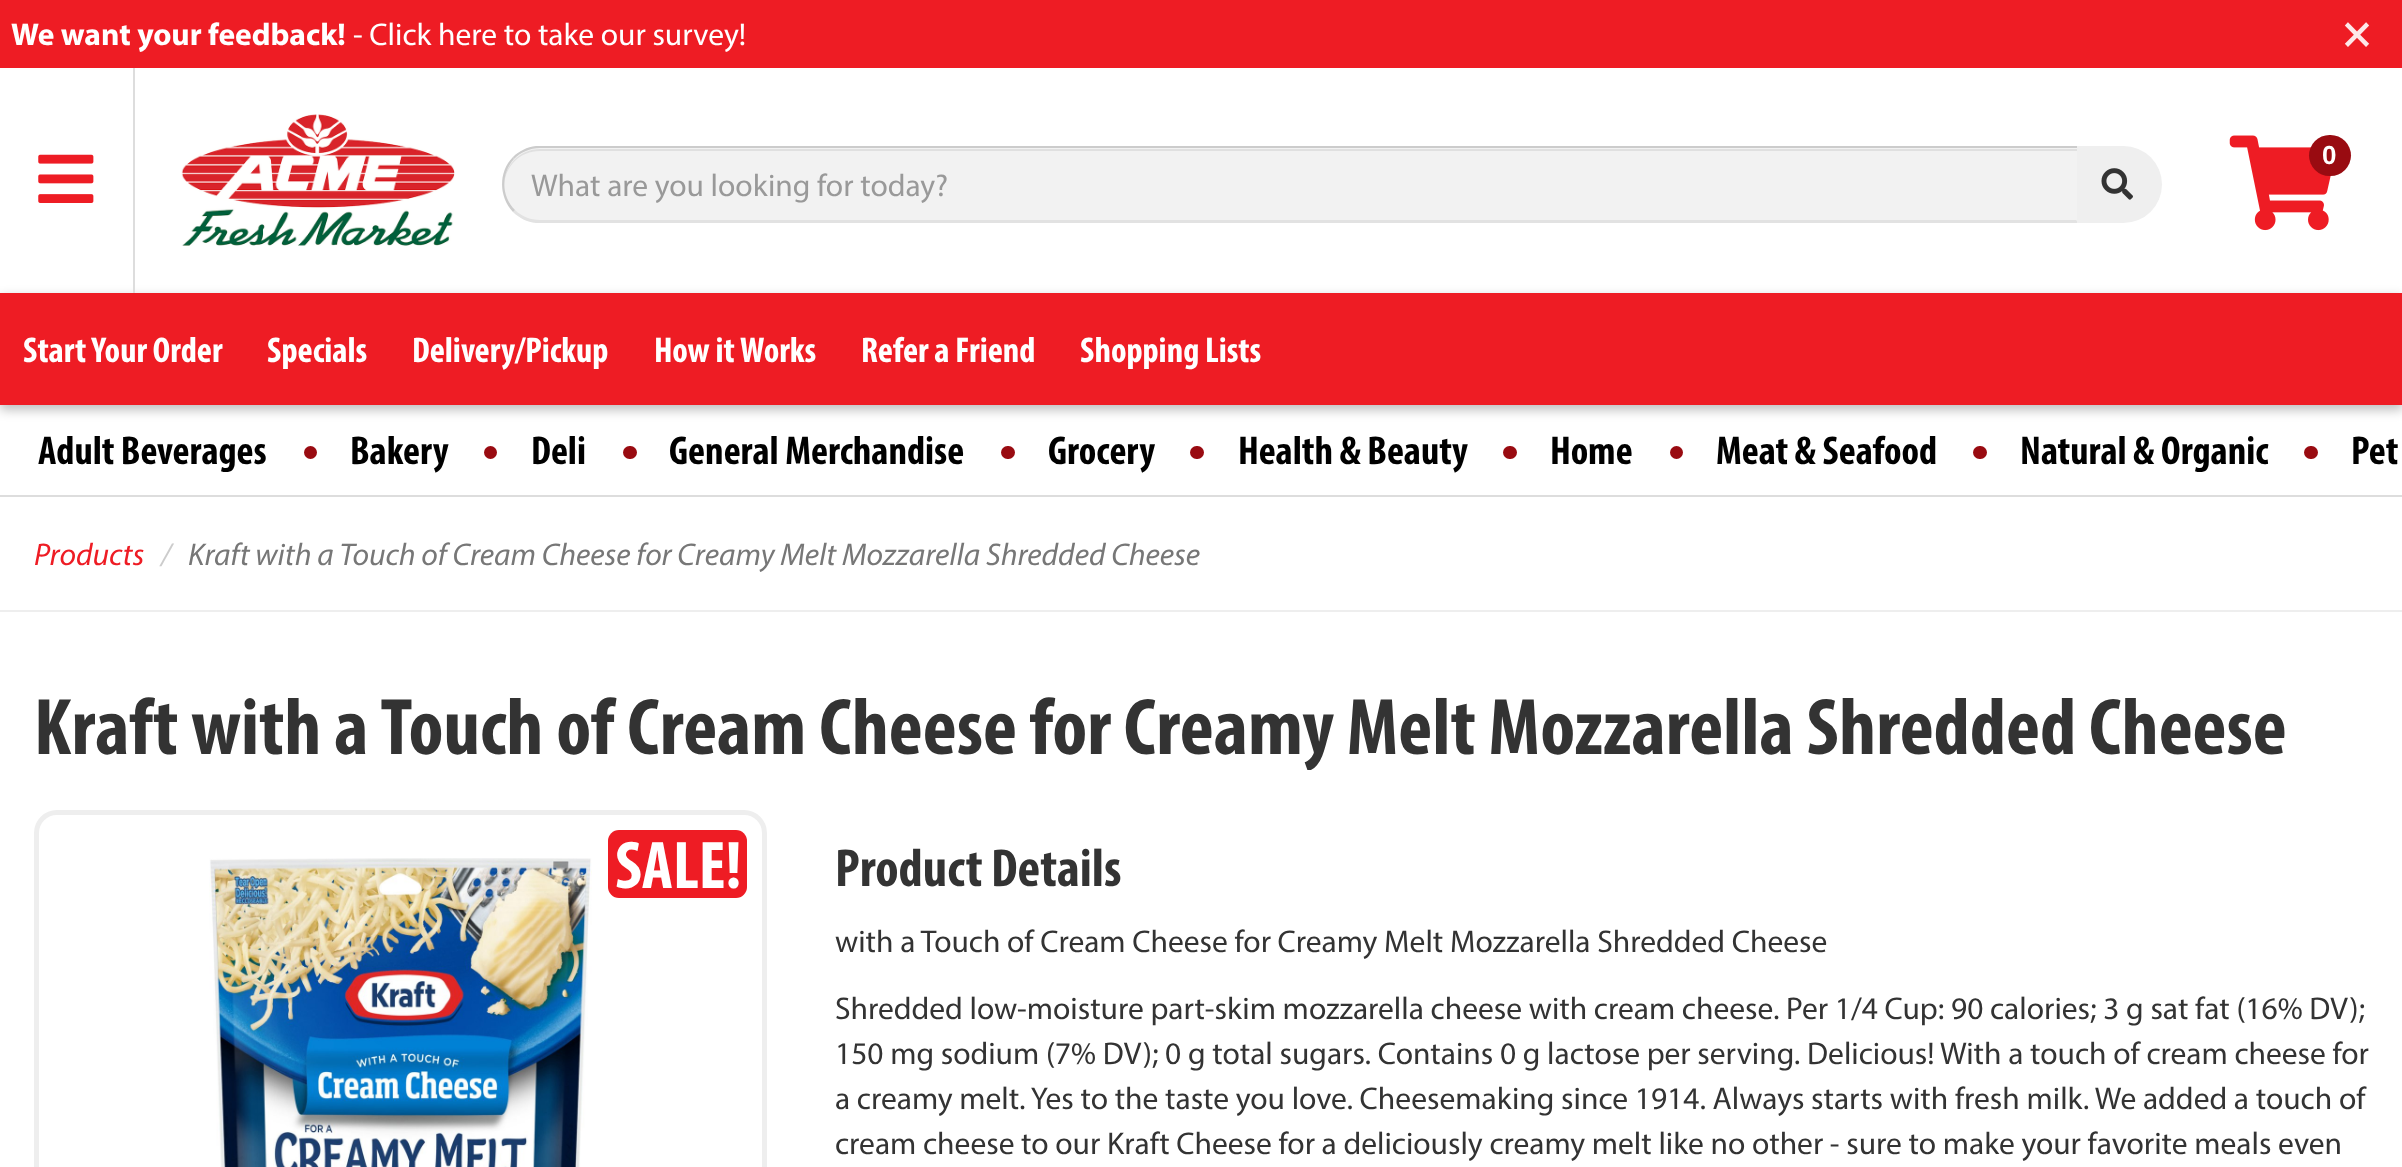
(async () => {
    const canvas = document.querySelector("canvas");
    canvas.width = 2402;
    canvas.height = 1167;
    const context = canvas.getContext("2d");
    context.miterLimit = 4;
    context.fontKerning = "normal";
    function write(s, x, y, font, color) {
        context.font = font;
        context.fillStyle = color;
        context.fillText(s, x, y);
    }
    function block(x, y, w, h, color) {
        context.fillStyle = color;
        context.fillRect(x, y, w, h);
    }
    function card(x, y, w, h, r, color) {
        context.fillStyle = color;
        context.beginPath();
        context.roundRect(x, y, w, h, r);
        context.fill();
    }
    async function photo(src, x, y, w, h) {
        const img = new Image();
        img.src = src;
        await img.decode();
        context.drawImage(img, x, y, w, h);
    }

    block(0, 0, 2402, 1167, "rgb(255, 255, 255)");
    block(0, 0, 2402, 68, "rgb(238, 28, 36)");
    write("We want your feedback!", 11, 45, "bold 31.5px Myriad", "rgb(255, 255, 255)");
    write("- Click here to take our survey!", 353, 45, "31.5px Myriad", "rgb(255, 255, 255)");
    write("×", 2343, 47, "bold 47px Myriad", "rgb(253, 232, 233)");
    context.fillStyle = "rgba(0, 0, 0, 0.25)";
    context.filter = "blur(5.5px)";
    context.beginPath();
    context.rect(0, 297, 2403, 113);
    context.fill();
    context.filter = "none";
    block(133, 68, 2, 225, "rgb(221, 221, 221)");
    await photo("media/1.png", 38, 154, 56, 49);
    await photo("media/2.png", 181, 114, 274, 132);
    await photo("media/3.png", 2229, 135, 102, 96);
    card(2309, 135, 42, 41, 20.5, "rgb(153, 11, 17)");
    write("0", 2322, 164, "bold 26px Liberation Sans", "rgb(255, 255, 255)");
    context.fillStyle = "rgb(242, 242, 242)";
    context.beginPath();
    context.roundRect(502, 146, 1577, 77, [38.5, 0, 0, 38.5]);
    context.fill();
    context.fillStyle = "rgb(224, 224, 224)";
    context.beginPath();
    context.moveTo(540, 151);
    context.lineTo(2077, 151);
    context.lineTo(2077, 149);
    context.lineTo(540, 149);
    context.bezierCurveTo(520, 149, 503, 166, 504, 186);
    context.bezierCurveTo(505, 166, 520, 151, 540, 151);
    context.closePath();
    context.fill();
    context.fillStyle = "rgb(204, 204, 204)";
    context.beginPath();
    context.moveTo(540, 148);
    context.bezierCurveTo(530, 148, 521, 152, 514, 159);
    context.lineTo(513, 157);
    context.bezierCurveTo(519, 151, 527, 147, 536, 146);
    context.lineTo(2079, 146);
    context.lineTo(2077, 148);
    context.closePath();
    context.fill();
    context.fillStyle = "rgb(226, 226, 226)";
    context.beginPath();
    context.moveTo(2079, 223);
    context.lineTo(536, 223);
    context.bezierCurveTo(527, 222, 519, 218, 513, 212);
    context.lineTo(515, 210);
    context.bezierCurveTo(521, 216, 530, 220, 540, 220);
    context.lineTo(2076, 220);
    context.closePath();
    context.fill();
    context.fillStyle = "rgb(204, 204, 204)";
    context.beginPath();
    context.moveTo(513, 212);
    context.bezierCurveTo(499, 197, 498, 172, 513, 157);
    context.lineTo(514, 159);
    context.bezierCurveTo(501, 173, 501, 196, 515, 210);
    context.closePath();
    context.fill();
    write("What are you looking for today?", 531, 196, "31.5px Myriad", "rgb(153, 153, 153)");
    context.fillStyle = "rgb(239, 239, 239)";
    context.beginPath();
    context.roundRect(2077, 146, 85, 77, [0, 38.5, 38.5, 0]);
    context.fill();
    await photo("media/4.png", 2101, 168, 32, 32);
    block(0, 293, 2402, 112, "rgb(238, 28, 36)");
    write("Start Your Order", 23, 362, "bold 36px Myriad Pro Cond", "rgb(255, 255, 255)");
    write("Specials", 267, 362, "bold 36px Myriad Pro Cond", "rgb(255, 255, 255)");
    write("Delivery/Pickup", 412, 362, "bold 36px Myriad Pro Cond", "rgb(255, 255, 255)");
    write("How it Works", 654, 362, "bold 36px Myriad Pro Cond", "rgb(255, 255, 255)");
    write("Refer a Friend", 861, 362, "bold 36px Myriad Pro Cond", "rgb(255, 255, 255)");
    write("Shopping Lists", 1080, 362, "bold 36px Myriad Pro Cond", "rgb(255, 255, 255)");
    write("Adult Beverages", 38, 464, "bold 40.5px Myriad Pro Cond", "rgb(0, 0, 0)");
    context.fillStyle = "rgb(153, 11, 17)";
    context.beginPath();
    context.arc(310.5, 452.5, 6.5, 0, Math.PI * 2);
    context.fill();
    write("Bakery", 350, 464, "bold 40.5px Myriad Pro Cond", "rgb(0, 0, 0)");
    context.fillStyle = "rgb(153, 11, 17)";
    context.beginPath();
    context.arc(490.5, 452.5, 6.5, 0, Math.PI * 2);
    context.fill();
    write("Deli", 531, 464, "bold 40.5px Myriad Pro Cond", "rgb(0, 0, 0)");
    card(623, 446, 14, 13, 6.5, "rgb(153, 11, 17)");
    write("General Merchandise", 669, 464, "bold 40.5px Myriad Pro Cond", "rgb(0, 0, 0)");
    card(1001, 446, 14, 13, 6.5, "rgb(153, 11, 17)");
    write("Grocery", 1048, 464, "bold 40.5px Myriad Pro Cond", "rgb(0, 0, 0)");
    card(1190, 446, 14, 13, 6.5, "rgb(153, 11, 17)");
    write("Health & Beauty", 1238, 464, "bold 40.5px Myriad Pro Cond", "rgb(0, 0, 0)");
    card(1503, 446, 14, 13, 6.5, "rgb(153, 11, 17)");
    write("Home", 1550, 464, "bold 40.5px Myriad Pro Cond", "rgb(0, 0, 0)");
    context.fillStyle = "rgb(153, 11, 17)";
    context.beginPath();
    context.arc(1676.5, 452.5, 6.5, 0, Math.PI * 2);
    context.fill();
    write("Meat & Seafood", 1716, 464, "bold 40.5px Myriad Pro Cond", "rgb(0, 0, 0)");
    card(1973, 446, 14, 13, 6.5, "rgb(153, 11, 17)");
    write("Natural & Organic", 2020, 464, "bold 40.5px Myriad Pro Cond", "rgb(0, 0, 0)");
    card(2304, 446, 14, 13, 6.5, "rgb(153, 11, 17)");
    write("Pet", 2351, 464, "bold 40.5px Myriad Pro Cond", "rgb(0, 0, 0)");
    block(0, 495, 2402, 2, "rgb(221, 221, 221)");
    block(0, 610, 2402, 2, "rgb(238, 238, 238)");
    write("Products", 34, 565, "italic 31.5px Myriad", "rgb(238, 28, 36)");
    write("/", 161, 565, "italic 31.5px Myriad", "rgb(204, 204, 204)");
    write("Kraft with a Touch of Cream Cheese for Creamy Melt Mozzarella Shredded Cheese", 188, 565, "italic 31.5px Myriad", "rgb(119, 119, 119)");
    context.save();
    context.beginPath();
    context.rect(34, 680, 2335, 90);
    context.clip();
    write("Kraft with a Touch of Cream Cheese for Creamy Melt Mozzarella Shredded Cheese", 34, 754, "bold 81px Myriad Pro Cond", "rgb(51, 51, 51)");
    context.restore();
    context.beginPath();
    context.roundRect(36.5, 812.5, 728, 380, 20.5);
    context.strokeStyle = "rgb(238, 238, 238)";
    context.lineWidth = 5;
    context.stroke();
    await photo("media/5.png", 209, 858, 383, 309);
    card(608, 830, 139, 68, 11, "rgb(238, 28, 36)");
    write("SALE!", 615, 888, "bold 68px Myriad Pro Cond", "rgb(255, 255, 255)");
    write("Product Details", 835, 886, "bold 54px Myriad Pro Cond", "rgb(51, 51, 51)");
    write("with a Touch of Cream Cheese for Creamy Melt Mozzarella Shredded Cheese", 835, 952, "31.5px Myriad", "rgb(51, 51, 51)");
    write("Shredded low-moisture part-skim mozzarella cheese with cream cheese. Per 1/4 Cup: 90 calories; 3 g sat fat (16% DV);", 835, 1019, "31.5px Myriad", "rgb(51, 51, 51)");
    write("150 mg sodium (7% DV); 0 g total sugars. Contains 0 g lactose per serving. Delicious! With a touch of cream cheese for", 835, 1064, "31.5px Myriad", "rgb(51, 51, 51)");
    write("a creamy melt. Yes to the taste you love. Cheesemaking since 1914. Always starts with fresh milk. We added a touch of", 835, 1109, "31.5px Myriad", "rgb(51, 51, 51)");
    write("cream cheese to our Kraft Cheese for a deliciously creamy melt like no other - sure to make your favorite meals even", 835, 1154, "31.5px Myriad", "rgb(51, 51, 51)");
})();
